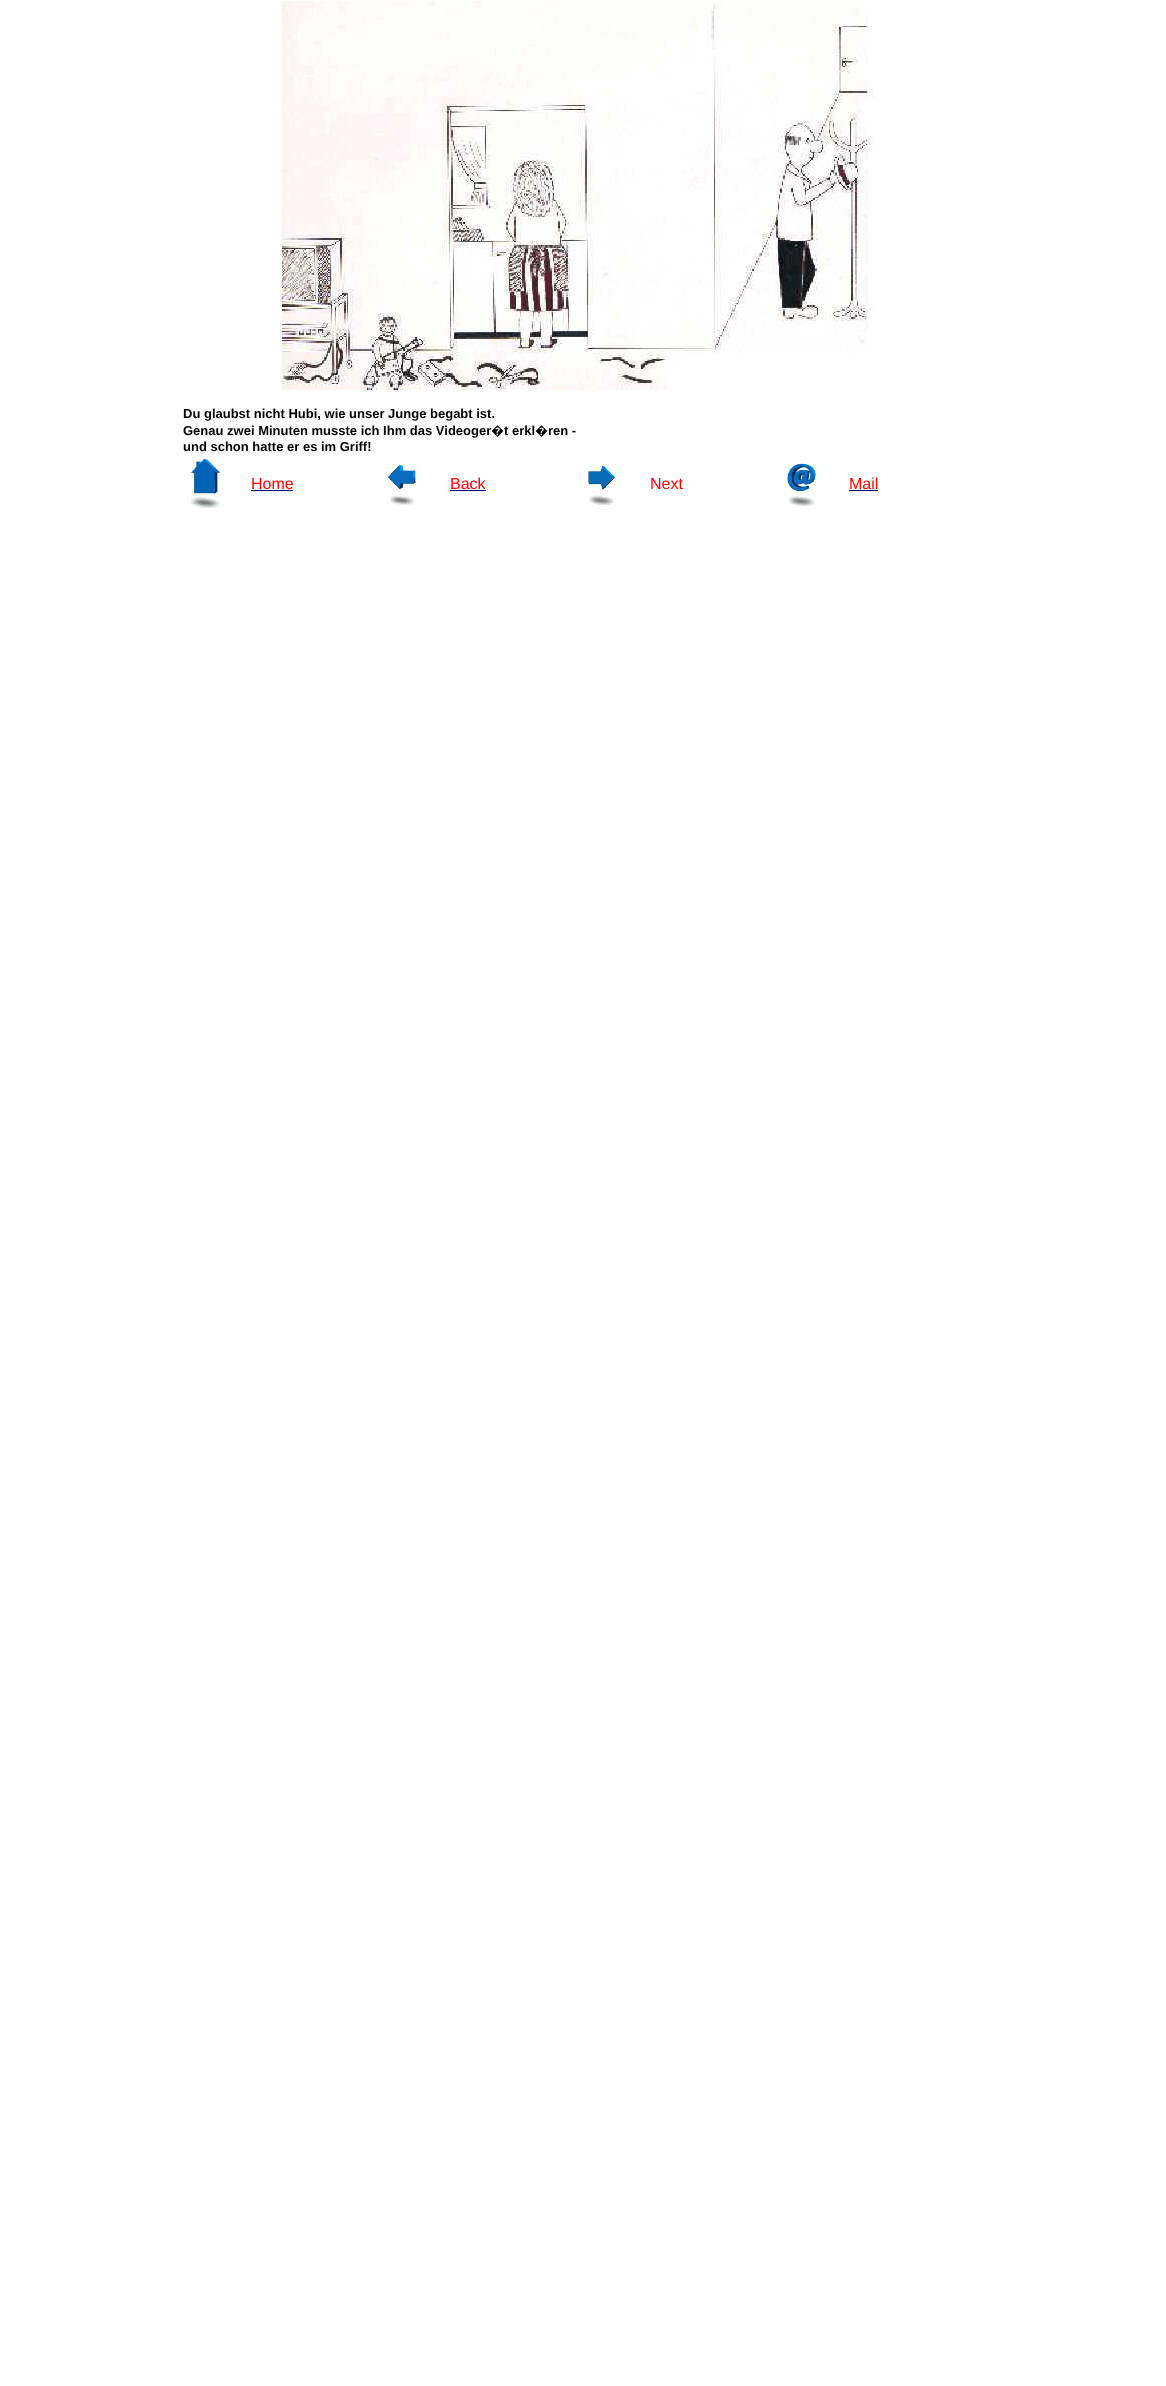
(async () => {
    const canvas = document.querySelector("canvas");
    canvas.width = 1166;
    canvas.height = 2386;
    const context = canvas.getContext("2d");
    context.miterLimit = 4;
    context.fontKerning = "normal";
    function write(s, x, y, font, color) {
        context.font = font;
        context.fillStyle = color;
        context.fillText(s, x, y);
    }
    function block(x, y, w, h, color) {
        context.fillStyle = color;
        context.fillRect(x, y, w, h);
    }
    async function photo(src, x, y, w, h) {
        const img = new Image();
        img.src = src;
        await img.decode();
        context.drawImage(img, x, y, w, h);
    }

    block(0, 0, 1166, 2386, "rgb(255, 255, 255)");
    await photo("media/1.png", 282, 1, 592, 389);
    write("Du glaubst nicht Hubi, wie unser Junge begabt ist.", 183, 418, "bold 13px Liberation Sans", "rgb(0, 0, 0)");
    write("Genau zwei Minuten musste ich Ihm das Videoger", 183, 435, "bold 13px Liberation Sans", "rgb(0, 0, 0)");
    write("�", 491, 435, "bold 13px Noto Sans", "rgb(0, 0, 0)");
    write("t erkl", 504, 435, "bold 13px Liberation Sans", "rgb(0, 0, 0)");
    write("�", 535, 435, "bold 13px Noto Sans", "rgb(0, 0, 0)");
    write("ren -", 548, 435, "bold 13px Liberation Sans", "rgb(0, 0, 0)");
    write("und schon hatte er es im Griff!", 183, 451, "bold 13px Liberation Sans", "rgb(0, 0, 0)");
    await photo("media/2.png", 191, 459, 29, 49);
    write("Home", 251, 489, "16px Liberation Sans", "rgb(255, 0, 0)");
    block(251, 490, 42, 1, "rgb(0, 0, 128)");
    await photo("media/3.png", 388, 465, 28, 40);
    write("Back", 450, 489, "16px Liberation Sans", "rgb(255, 0, 0)");
    block(450, 490, 36, 1, "rgb(0, 0, 128)");
    await photo("media/4.png", 588, 466, 27, 39);
    write("Next", 650, 489, "16px Liberation Sans", "rgb(255, 0, 0)");
    await photo("media/5.png", 787, 463, 29, 43);
    write("Mail", 849, 489, "16px Liberation Sans", "rgb(255, 0, 0)");
    block(849, 490, 29, 1, "rgb(0, 0, 128)");
})();
